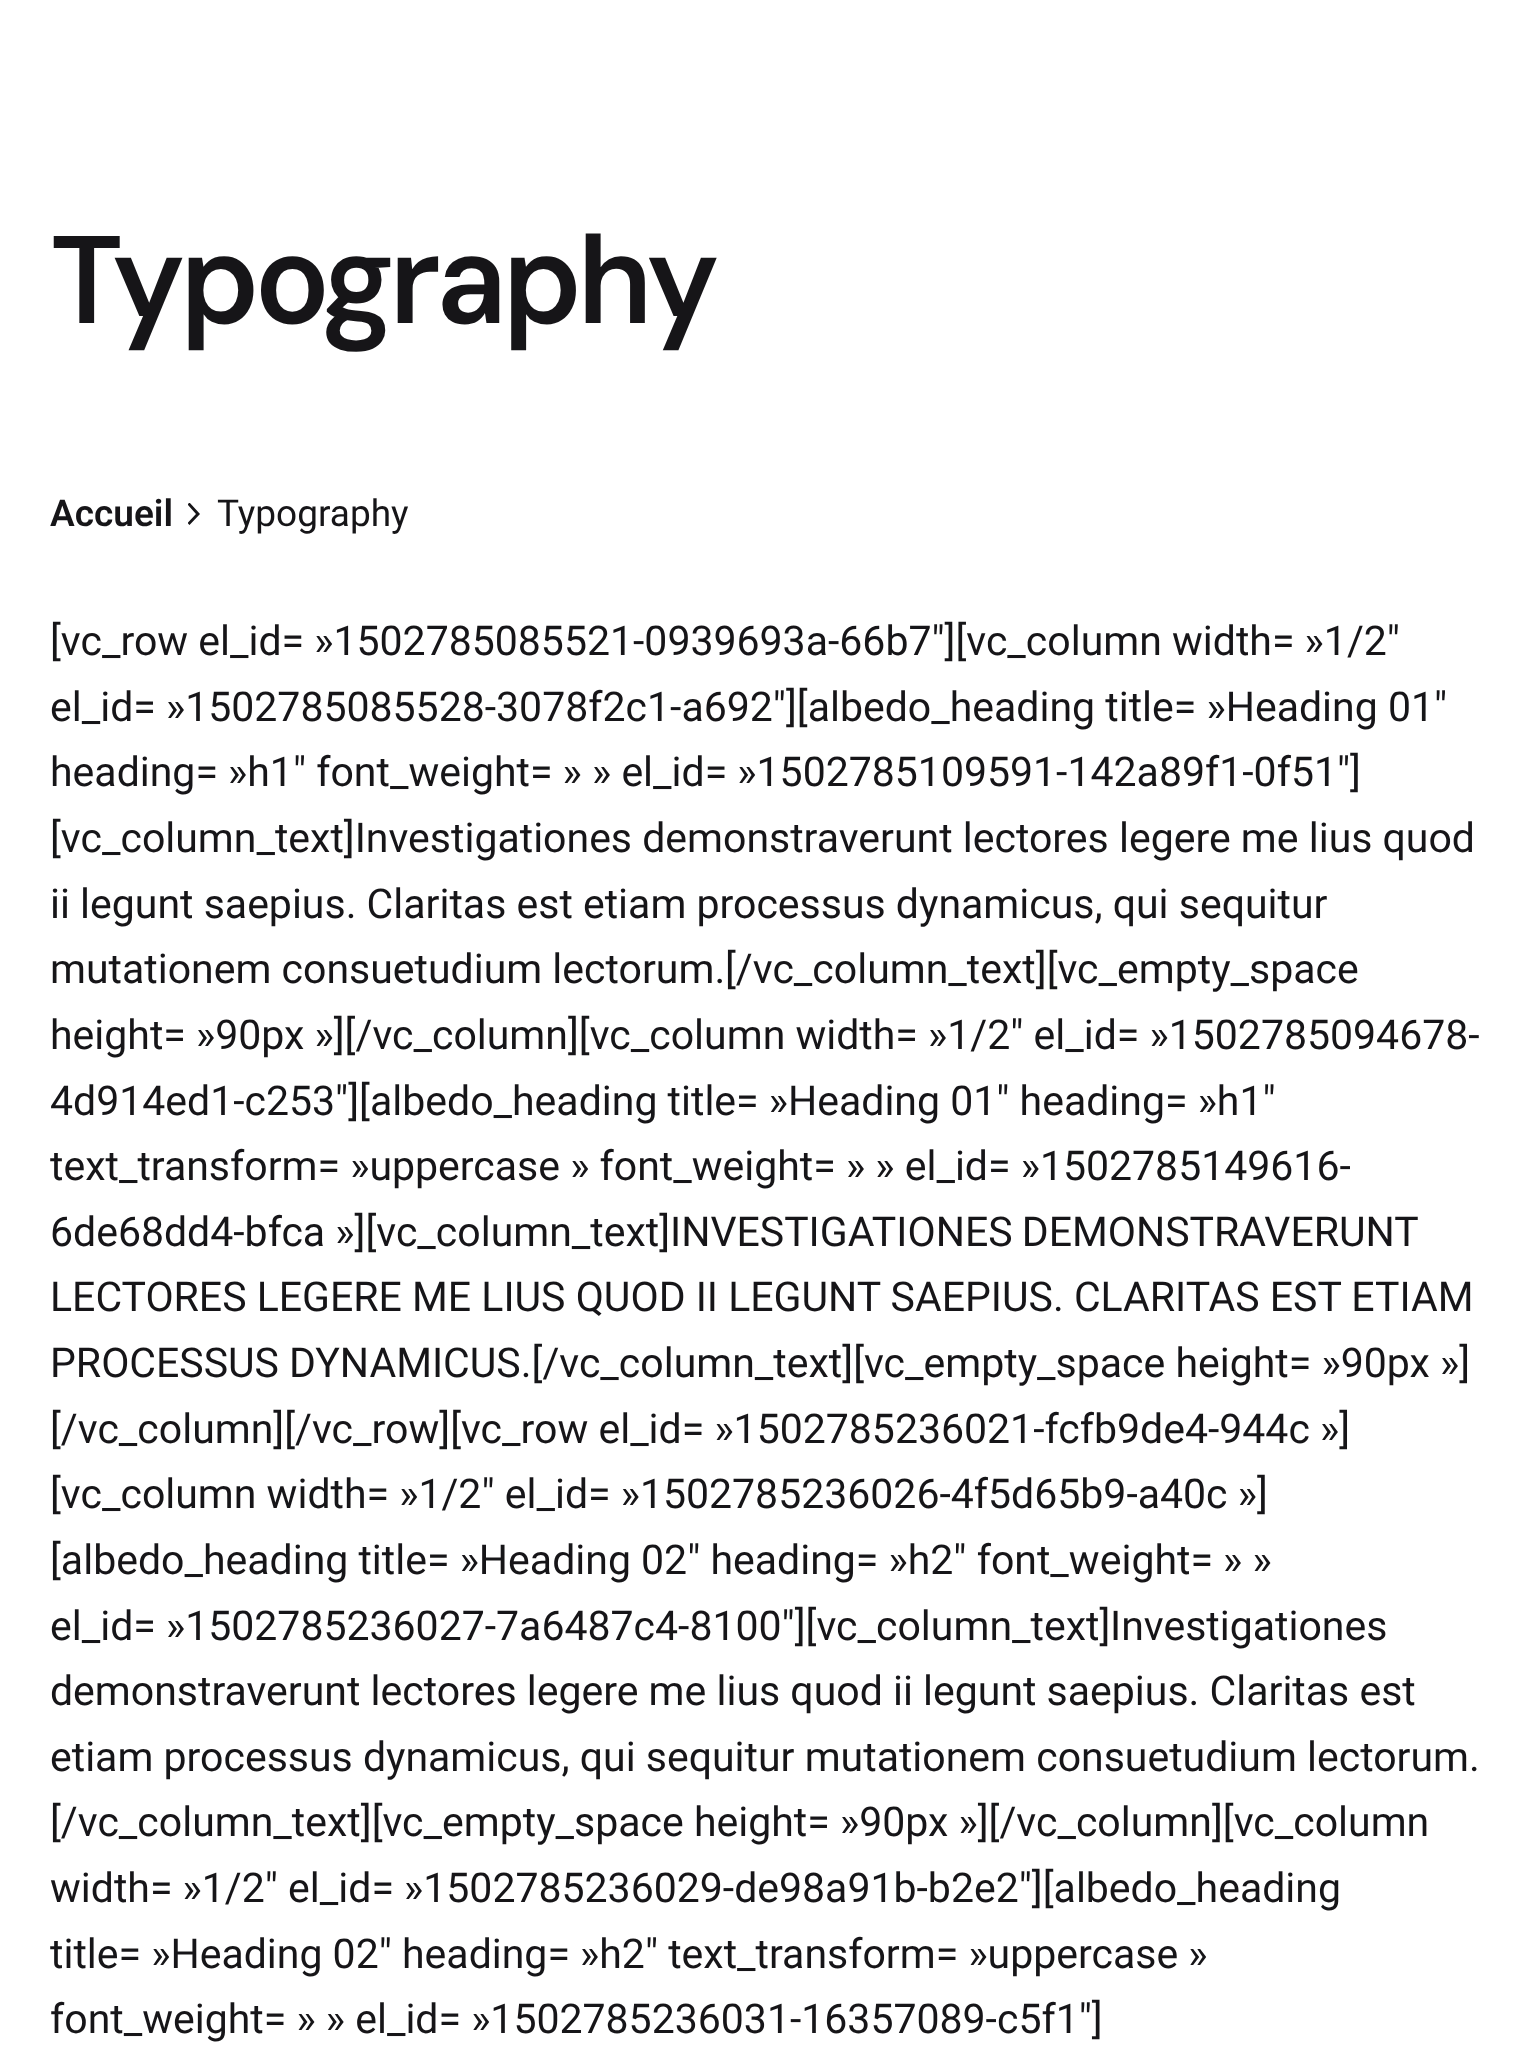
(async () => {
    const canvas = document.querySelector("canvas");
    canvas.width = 1536;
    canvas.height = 2049;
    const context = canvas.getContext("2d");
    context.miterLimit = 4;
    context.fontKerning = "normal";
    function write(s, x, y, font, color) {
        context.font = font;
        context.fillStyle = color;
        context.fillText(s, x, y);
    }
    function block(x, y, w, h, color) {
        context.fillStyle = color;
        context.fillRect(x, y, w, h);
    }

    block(0, 0, 1536, 2049, "rgb(255, 255, 255)");
    context.letterSpacing = "-5.5px";
    write("Typography", 50, 323, "600 124.25px DM Sans", "rgb(22, 21, 24)");
    context.letterSpacing = "0px";
    write("Accueil", 50, 526, "600 37px Roboto", "rgb(22, 21, 24)");
    context.save();
    context.beginPath();
    context.rect(188, 503, 12, 22);
    context.clip();
    context.beginPath();
    context.moveTo(187.5, 523);
    context.lineTo(189.5, 525);
    context.lineTo(200, 514);
    context.lineTo(189.5, 502.5);
    context.lineTo(187.5, 504.5);
    context.lineTo(196, 514);
    context.closePath();
    context.fill();
    context.restore();
    write("Typography", 217, 526, "37px Roboto", "rgb(22, 21, 24)");
    write("[vc_row el_id= »1502785085521-0939693a-66b7″][vc_column width= »1/2″", 50, 655, "41px Roboto", "rgb(22, 21, 24)");
    write("el_id= »1502785085528-3078f2c1-a692″][albedo_heading title= »Heading 01″", 50, 721, "41px Roboto", "rgb(22, 21, 24)");
    write("heading= »h1″ font_weight= » » el_id= »1502785109591-142a89f1-0f51″]", 50, 786, "41px Roboto", "rgb(22, 21, 24)");
    write("[vc_column_text]Investigationes demonstraverunt lectores legere me lius quod", 50, 852, "41px Roboto", "rgb(22, 21, 24)");
    write("ii legunt saepius. Claritas est etiam processus dynamicus, qui sequitur", 50, 918, "41px Roboto", "rgb(22, 21, 24)");
    write("mutationem consuetudium lectorum.", 50, 983, "41px Roboto", "rgb(22, 21, 24)");
    write("[/vc_column_text][vc_empty_space", 725, 983, "41px Roboto", "rgb(22, 21, 24)");
    write("height= »90px »][/vc_column][vc_column width= »1/2″ el_id= »1502785094678-", 50, 1049, "41px Roboto", "rgb(22, 21, 24)");
    write("4d914ed1-c253″][albedo_heading title= »Heading 01″ heading= »h1″", 50, 1115, "41px Roboto", "rgb(22, 21, 24)");
    write("text_transform= »uppercase » font_weight= » » el_id= »1502785149616-", 50, 1180, "41px Roboto", "rgb(22, 21, 24)");
    write("6de68dd4-bfca »][vc_column_text]", 50, 1246, "41px Roboto", "rgb(22, 21, 24)");
    context.wordSpacing = "-1px";
    write("INVESTIGATIONES DEMONSTRAVERUNT", 670, 1246, "41px Roboto", "rgb(22, 21, 24)");
    context.wordSpacing = "0px";
    write("LECTORES LEGERE ME LIUS QUOD II LEGUNT SAEPIUS. CLARITAS EST ETIAM", 50, 1311, "41px Roboto", "rgb(22, 21, 24)");
    write("PROCESSUS DYNAMICUS.[/vc_column_text][vc_empty_space height= »90px »]", 50, 1377, "41px Roboto", "rgb(22, 21, 24)");
    write("[/vc_column][/vc_row][vc_row el_id= »1502785236021-fcfb9de4-944c »]", 50, 1443, "41px Roboto", "rgb(22, 21, 24)");
    write("[vc_column width= »1/2″ el_id= »1502785236026-4f5d65b9-a40c »]", 50, 1508, "41px Roboto", "rgb(22, 21, 24)");
    write("[albedo_heading title= »Heading 02″ heading= »h2″ font_weight= » »", 50, 1574, "41px Roboto", "rgb(22, 21, 24)");
    write("el_id= »1502785236027-7a6487c4-8100″][vc_column_text]", 50, 1640, "41px Roboto", "rgb(22, 21, 24)");
    write("Investigationes", 1110, 1640, "41px Roboto", "rgb(22, 21, 24)");
    write("demonstraverunt lectores legere me lius quod ii legunt saepius. Claritas est", 50, 1705, "41px Roboto", "rgb(22, 21, 24)");
    write("etiam processus dynamicus, qui sequitur mutationem consuetudium lectorum.", 50, 1771, "41px Roboto", "rgb(22, 21, 24)");
    write("[/vc_column_text][vc_empty_space height= »90px »][/vc_column][vc_column", 50, 1836, "41px Roboto", "rgb(22, 21, 24)");
    write("width= »1/2″ el_id= »1502785236029-de98a91b-b2e2″][albedo_heading", 50, 1902, "41px Roboto", "rgb(22, 21, 24)");
    write("title= »Heading 02″ heading= »h2″ text_transform= »uppercase »", 50, 1968, "41px Roboto", "rgb(22, 21, 24)");
    write("font_weight= » » el_id= »1502785236031-16357089-c5f1″]", 50, 2033, "41px Roboto", "rgb(22, 21, 24)");
})();
